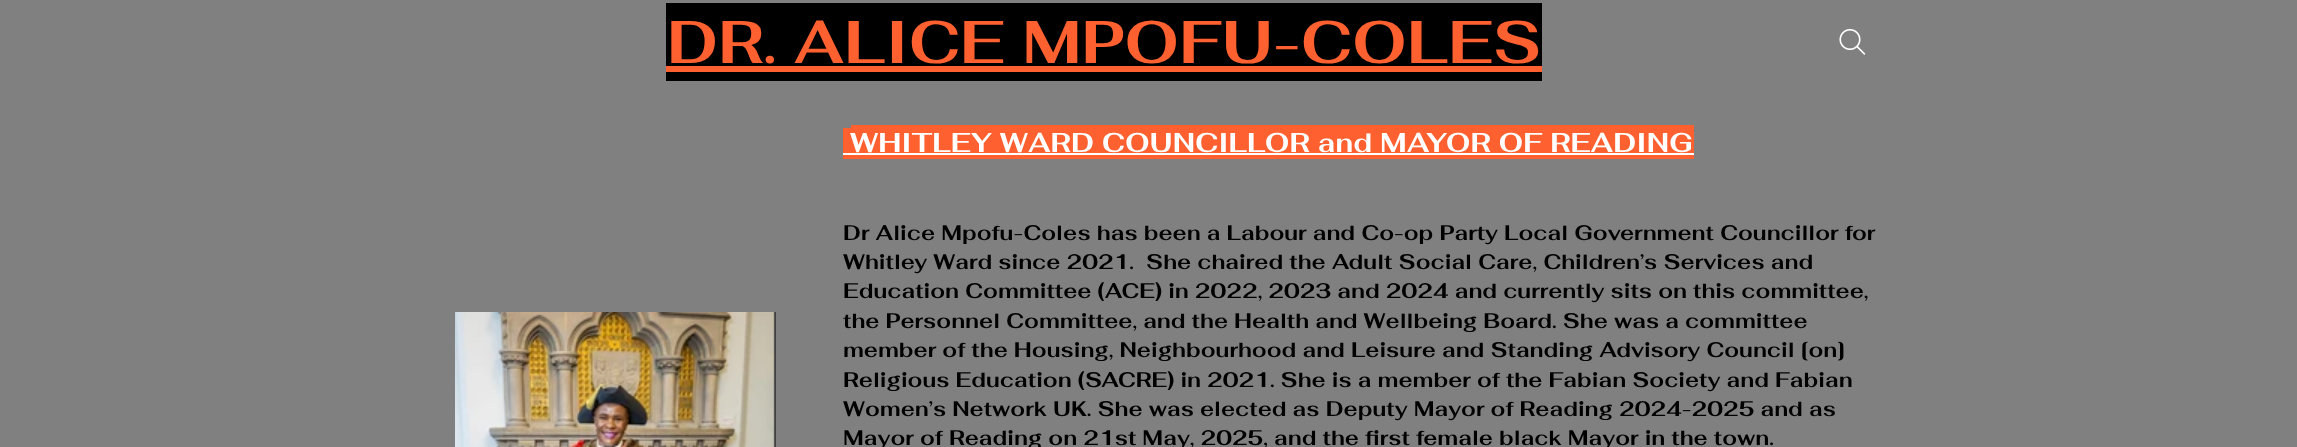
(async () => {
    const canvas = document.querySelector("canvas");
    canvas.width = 2297;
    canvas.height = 447;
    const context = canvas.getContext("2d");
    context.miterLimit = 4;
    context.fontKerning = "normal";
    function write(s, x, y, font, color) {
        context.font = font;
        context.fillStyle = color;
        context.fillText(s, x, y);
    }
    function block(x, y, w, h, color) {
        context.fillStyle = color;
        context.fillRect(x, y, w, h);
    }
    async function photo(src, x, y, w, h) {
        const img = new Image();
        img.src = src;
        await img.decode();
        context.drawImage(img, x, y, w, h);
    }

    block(0, 0, 2297, 447, "rgb(128, 128, 128)");
    block(666, 3, 876, 78, "rgb(0, 0, 0)");
    write("DR. ALICE MPOFU-COLES", 667, 63, "bold 60px Fahkwang", "rgb(254, 96, 47)");
    block(666, 66, 876, 6, "rgb(254, 96, 47)");
    await photo("media/1.png", 1839, 29, 27, 26);
    block(773, 312, 3, 135, "rgb(64, 64, 64)");
    await photo("media/2.png", 455, 312, 320, 135);
    block(843, 128, 8, 31, "rgb(254, 96, 47)");
    block(851, 125, 843, 34, "rgb(254, 96, 47)");
    write("WHITLEY WARD COUNCILLOR and MAYOR OF READING", 850, 152, "bold 27px Fahkwang", "rgb(255, 255, 255)");
    block(843, 153, 8, 2, "rgb(255, 255, 255)");
    block(851, 153, 843, 2, "rgb(255, 255, 255)");
    write("Dr Alice Mpofu-Coles has been a Labour and Co-op Party Local Government Councillor for", 843, 240, "bold 21px Fahkwang", "rgb(0, 0, 0)");
    write("Whitley Ward since 2021.  She chaired the Adult Social Care, Children’s Services and", 843, 269, "bold 21px Fahkwang", "rgb(0, 0, 0)");
    write("Education Committee (ACE) in 2022, 2023 and 2024 and currently sits on this committee,", 843, 298, "bold 21px Fahkwang", "rgb(0, 0, 0)");
    write("the Personnel Committee, and the Health and Wellbeing Board. She was a committee", 843, 328, "bold 21px Fahkwang", "rgb(0, 0, 0)");
    write("member of the Housing, Neighbourhood and Leisure and Standing Advisory Council [on]", 843, 357, "bold 21px Fahkwang", "rgb(0, 0, 0)");
    write("Religious Education (SACRE) in 2021. She is a member of the Fabian Society and Fabian", 843, 387, "bold 21px Fahkwang", "rgb(0, 0, 0)");
    write("Women’s Network UK. She was elected as Deputy Mayor of Reading 2024-2025 and as", 843, 416, "bold 21px Fahkwang", "rgb(0, 0, 0)");
    write("Mayor of Reading on 21st May, 2025, and the first female black Mayor in the town.", 843, 445, "bold 21px Fahkwang", "rgb(0, 0, 0)");
})();
